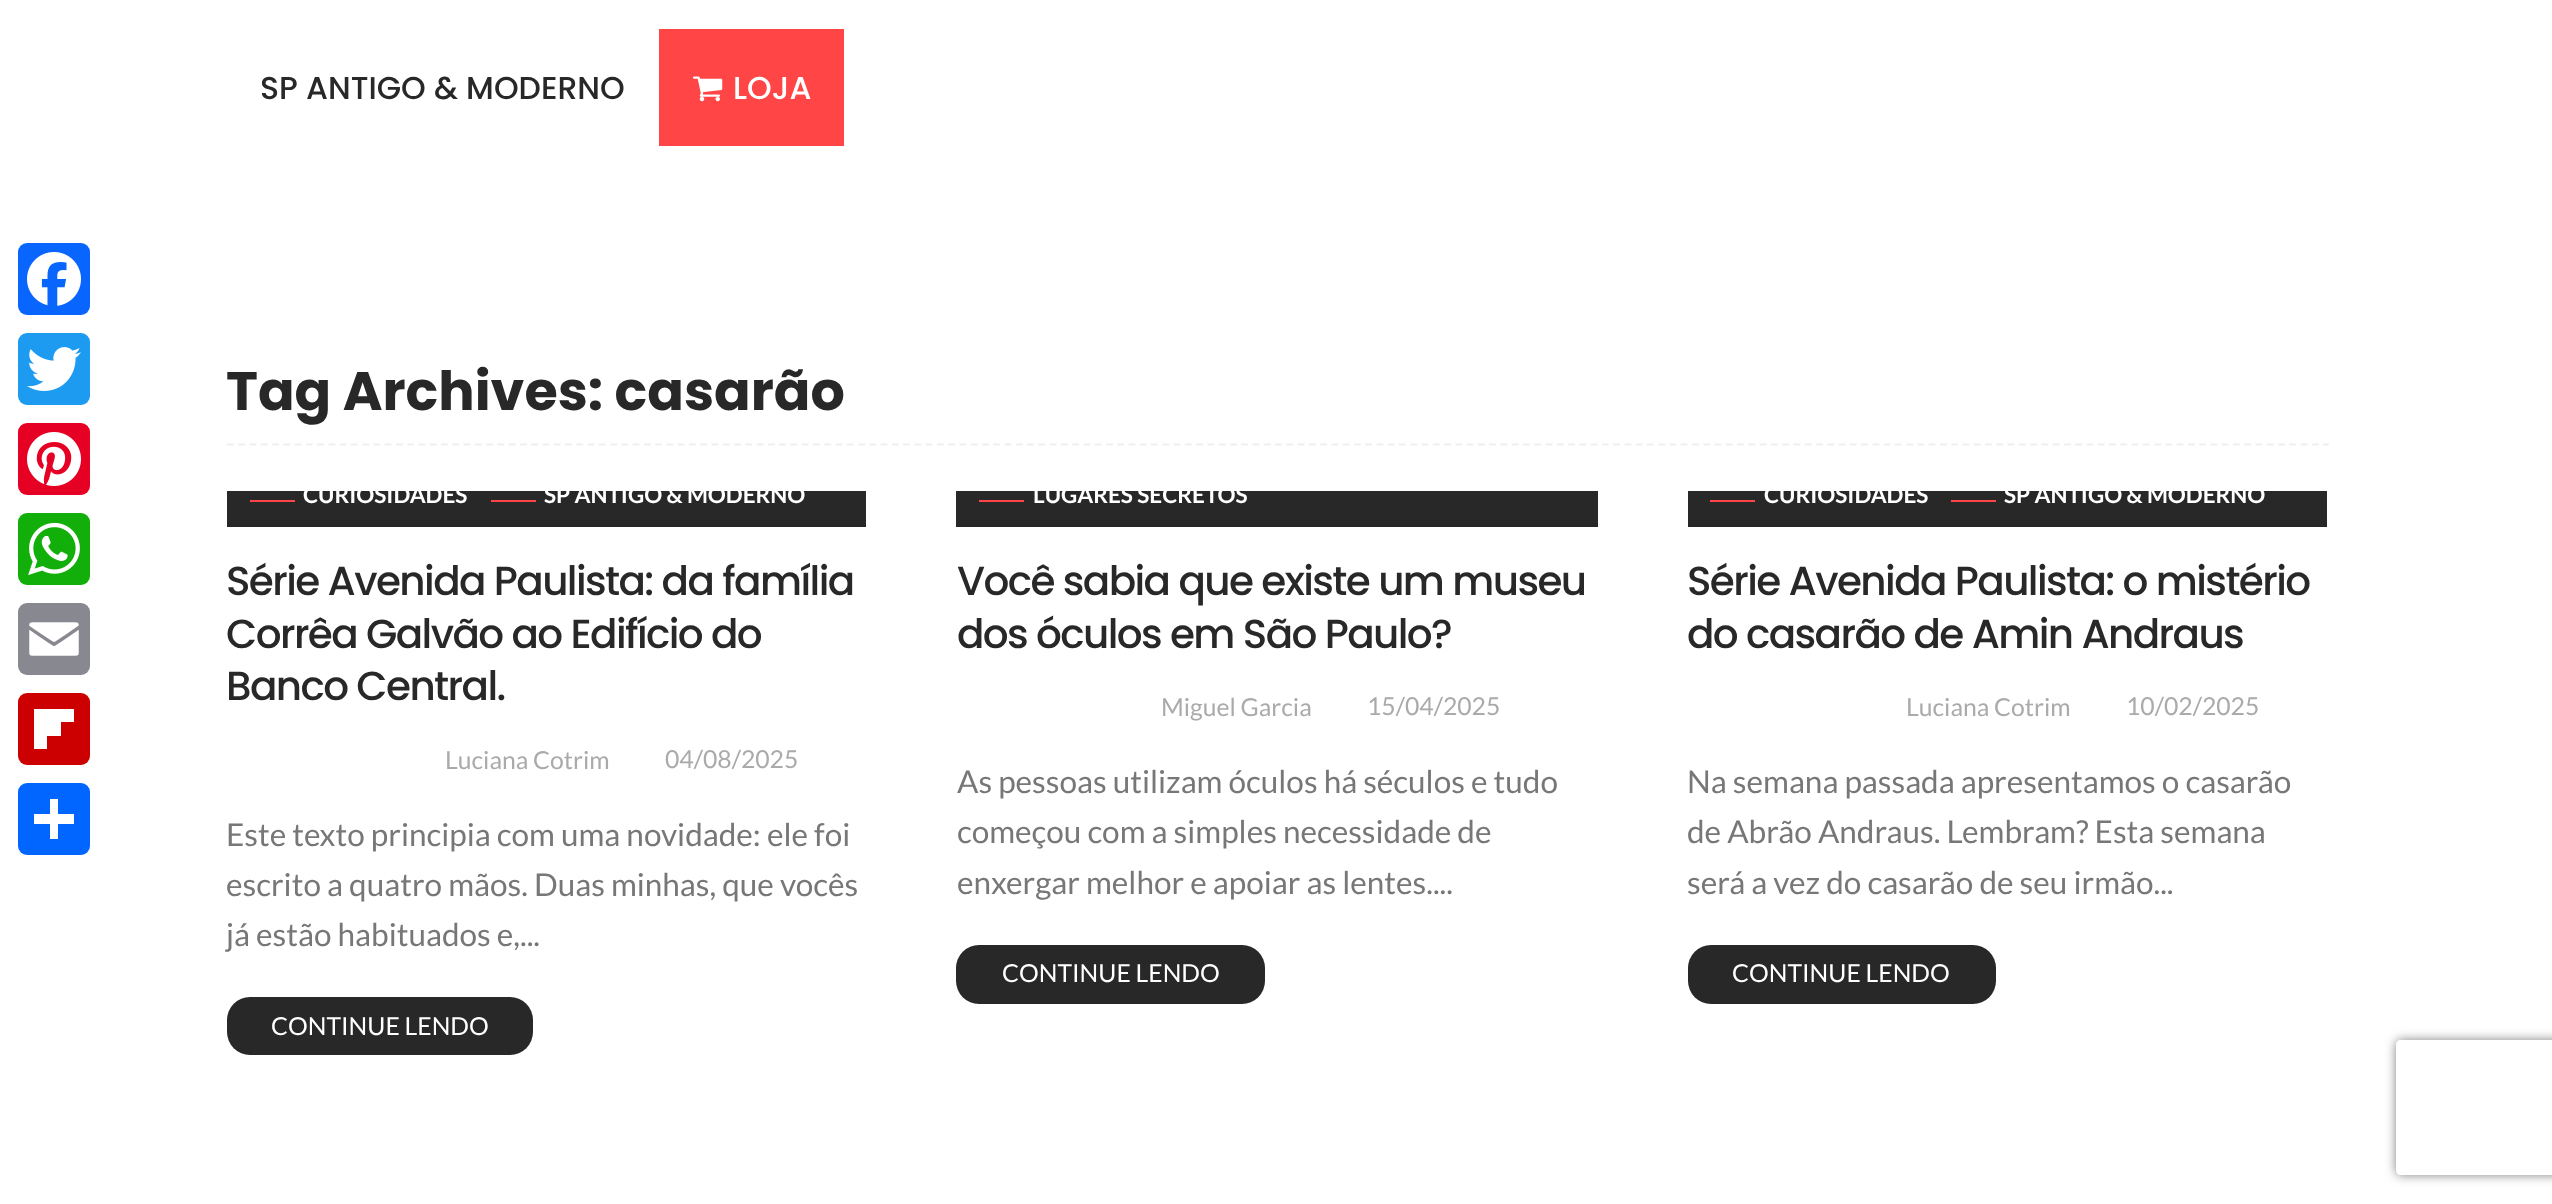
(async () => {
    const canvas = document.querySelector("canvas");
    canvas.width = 2552;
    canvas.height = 1204;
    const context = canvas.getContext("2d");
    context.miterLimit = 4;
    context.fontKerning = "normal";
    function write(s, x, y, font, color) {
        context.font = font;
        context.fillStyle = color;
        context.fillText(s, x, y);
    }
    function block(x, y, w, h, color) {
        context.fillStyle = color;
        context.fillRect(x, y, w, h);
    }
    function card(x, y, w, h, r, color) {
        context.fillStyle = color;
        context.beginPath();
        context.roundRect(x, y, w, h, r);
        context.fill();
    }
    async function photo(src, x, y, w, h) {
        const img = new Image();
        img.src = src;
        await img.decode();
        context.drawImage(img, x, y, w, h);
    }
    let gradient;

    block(0, 0, 2552, 1204, "rgb(255, 255, 255)");
    card(18, 243, 72, 72, 9, "rgb(8, 102, 255)");
    await photo("media/1.png", 27, 252, 54, 54);
    card(18, 333, 72, 72, 9, "rgb(29, 155, 240)");
    await photo("media/2.png", 27, 347, 54, 44);
    card(18, 423, 72, 72, 9, "rgb(230, 0, 35)");
    await photo("media/3.png", 27, 432, 54, 54);
    card(18, 513, 72, 72, 9, "rgb(18, 175, 10)");
    await photo("media/4.png", 28, 522, 52, 53);
    card(18, 603, 72, 72, 9, "rgb(136, 137, 144)");
    await photo("media/5.png", 29, 622, 50, 34);
    card(18, 693, 72, 72, 9, "rgb(204, 0, 0)");
    block(47, 722, 14, 14, "rgb(255, 255, 255)");
    block(47, 709, 27, 13, "rgb(255, 255, 255)");
    block(34, 709, 13, 40, "rgb(255, 255, 255)");
    card(18, 783, 72, 72, 9, "rgb(1, 102, 255)");
    block(50, 799, 8, 40, "rgb(255, 255, 255)");
    block(34, 814, 40, 10, "rgb(255, 255, 255)");
    write("SP ANTIGO & MODERNO", 260, 99, "500 31.5px Poppins", "rgb(40, 40, 40)");
    block(659, 29, 185, 117, "rgb(255, 69, 69)");
    await photo("media/6.png", 693, 76, 30, 26);
    write("LOJA", 733, 99, "500 31.5px Poppins", "rgb(255, 255, 255)");
    context.beginPath();
    context.moveTo(227, 444.5);
    context.lineTo(2329, 444.5);
    context.strokeStyle = "rgb(239, 239, 239)";
    context.lineWidth = 2.2;
    context.setLineDash([6.75, 4.52]);
    context.stroke();
    write("Tag Archives: casarão", 226, 410, "bold 54px Poppins", "rgb(40, 40, 40)");
    block(227, 491, 639, 31, "rgb(40, 40, 40)");
    block(250, 500, 45, 2, "rgb(255, 69, 69)");
    context.save();
    context.beginPath();
    context.rect(227, 491, 639, 36);
    context.clip();
    write("CURIOSIDADES", 303, 503, "bold 22.5px Lato", "rgb(255, 255, 255)");
    context.restore();
    block(491, 500, 45, 2, "rgb(255, 69, 69)");
    context.save();
    context.beginPath();
    context.rect(227, 491, 639, 36);
    context.clip();
    write("SP ANTIGO & MODERNO", 544, 503, "bold 22.5px Lato", "rgb(255, 255, 255)");
    context.restore();
    gradient = context.createLinearGradient(547, 522, 547, 529);
    gradient.addColorStop(0, "rgb(40, 40, 40)");
    gradient.addColorStop(0.3, "rgb(39, 39, 39)");
    gradient.addColorStop(1, "rgb(37, 37, 37)");
    context.fillStyle = gradient;
    context.fillRect(227, 522, 639, 5);
    context.letterSpacing = "-1.6px";
    write("Série Avenida Paulista: da família", 226, 595, "500 40.5px Poppins", "rgb(40, 40, 40)");
    write("Corrêa Galvão ao Edifício do", 226, 648, "500 40.5px Poppins", "rgb(40, 40, 40)");
    write("Banco Central.", 226, 700, "500 40.5px Poppins", "rgb(40, 40, 40)");
    context.letterSpacing = "0px";
    write("Luciana Cotrim", 445, 769, "24.75px Lato", "rgb(170, 170, 170)");
    write("04/08/2025", 665, 768, "24.75px Lato", "rgb(170, 170, 170)");
    write("Este texto principia com uma novidade: ele foi", 226, 846, "31.5px Lato", "rgb(119, 119, 119)");
    write("escrito a quatro mãos. Duas minhas, que vocês", 226, 896, "31.5px Lato", "rgb(119, 119, 119)");
    write("já estão habituados e,...", 226, 946, "31.5px Lato", "rgb(119, 119, 119)");
    card(227, 997, 306, 58, 23, "rgb(40, 40, 40)");
    write("CONTINUE LENDO", 271, 1035, "24.75px Lato", "rgb(255, 255, 255)");
    block(956, 491, 642, 31, "rgb(40, 40, 40)");
    block(979, 500, 45, 2, "rgb(255, 69, 69)");
    context.save();
    context.beginPath();
    context.rect(956, 491, 642, 36);
    context.clip();
    write("LUGARES SECRETOS", 1033, 503, "bold 22.5px Lato", "rgb(255, 255, 255)");
    context.restore();
    gradient = context.createLinearGradient(1277, 522, 1277, 529);
    gradient.addColorStop(0, "rgb(40, 40, 40)");
    gradient.addColorStop(0.3, "rgb(39, 39, 39)");
    gradient.addColorStop(1, "rgb(37, 37, 37)");
    context.fillStyle = gradient;
    context.fillRect(956, 522, 642, 5);
    context.letterSpacing = "-1.6px";
    write("Você sabia que existe um museu", 957, 595, "500 40.5px Poppins", "rgb(40, 40, 40)");
    write("dos óculos em São Paulo?", 957, 648, "500 40.5px Poppins", "rgb(40, 40, 40)");
    context.letterSpacing = "0px";
    write("Miguel Garcia", 1161, 716, "24.75px Lato", "rgb(170, 170, 170)");
    write("15/04/2025", 1367, 715, "24.75px Lato", "rgb(170, 170, 170)");
    write("As pessoas utilizam óculos há séculos e tudo", 957, 793, "31.5px Lato", "rgb(119, 119, 119)");
    write("começou com a simples necessidade de", 957, 843, "31.5px Lato", "rgb(119, 119, 119)");
    write("enxergar melhor e apoiar as lentes....", 957, 894, "31.5px Lato", "rgb(119, 119, 119)");
    card(956, 945, 309, 59, 23, "rgb(40, 40, 40)");
    write("CONTINUE LENDO", 1002, 982, "24.75px Lato", "rgb(255, 255, 255)");
    block(1688, 491, 639, 31, "rgb(40, 40, 40)");
    block(1710, 500, 45, 2, "rgb(255, 69, 69)");
    context.save();
    context.beginPath();
    context.rect(1688, 491, 639, 36);
    context.clip();
    write("CURIOSIDADES", 1764, 503, "bold 22.5px Lato", "rgb(255, 255, 255)");
    context.restore();
    block(1951, 500, 45, 2, "rgb(255, 69, 69)");
    context.save();
    context.beginPath();
    context.rect(1688, 491, 639, 36);
    context.clip();
    write("SP ANTIGO & MODERNO", 2004, 503, "bold 22.5px Lato", "rgb(255, 255, 255)");
    context.restore();
    gradient = context.createLinearGradient(2007, 522, 2007, 529);
    gradient.addColorStop(0, "rgb(40, 40, 40)");
    gradient.addColorStop(0.3, "rgb(39, 39, 39)");
    gradient.addColorStop(1, "rgb(37, 37, 37)");
    context.fillStyle = gradient;
    context.fillRect(1688, 522, 639, 5);
    context.letterSpacing = "-1.6px";
    write("Série Avenida Paulista: o mistério", 1687, 595, "500 40.5px Poppins", "rgb(40, 40, 40)");
    write("do casarão de Amin Andraus", 1687, 648, "500 40.5px Poppins", "rgb(40, 40, 40)");
    context.letterSpacing = "0px";
    write("Luciana Cotrim", 1906, 716, "24.75px Lato", "rgb(170, 170, 170)");
    write("10/02/2025", 2126, 715, "24.75px Lato", "rgb(170, 170, 170)");
    write("Na semana passada apresentamos o casarão", 1687, 793, "31.5px Lato", "rgb(119, 119, 119)");
    write("de Abrão Andraus. Lembram? Esta semana", 1687, 843, "31.5px Lato", "rgb(119, 119, 119)");
    write("será a vez do casarão de seu irmão...", 1687, 894, "31.5px Lato", "rgb(119, 119, 119)");
    card(1688, 945, 308, 59, 23, "rgb(40, 40, 40)");
    write("CONTINUE LENDO", 1732, 982, "24.75px Lato", "rgb(255, 255, 255)");
    context.save();
    context.beginPath();
    context.moveTo(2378, 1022);
    context.lineTo(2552, 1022);
    context.lineTo(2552, 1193);
    context.lineTo(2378, 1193);
    context.closePath();
    context.moveTo(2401, 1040);
    context.lineTo(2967, 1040);
    context.bezierCurveTo(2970, 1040, 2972, 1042, 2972, 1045);
    context.lineTo(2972, 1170);
    context.bezierCurveTo(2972, 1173, 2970, 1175, 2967, 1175);
    context.lineTo(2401, 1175);
    context.bezierCurveTo(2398, 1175, 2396, 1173, 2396, 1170);
    context.lineTo(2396, 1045);
    context.bezierCurveTo(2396, 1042, 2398, 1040, 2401, 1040);
    context.closePath();
    context.clip("evenodd");
    context.fillStyle = "rgb(128, 128, 128)";
    context.filter = "blur(5.5px)";
    context.beginPath();
    context.roundRect(2396, 1040, 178, 135, 5);
    context.fill();
    context.filter = "none";
    context.restore();
})();
